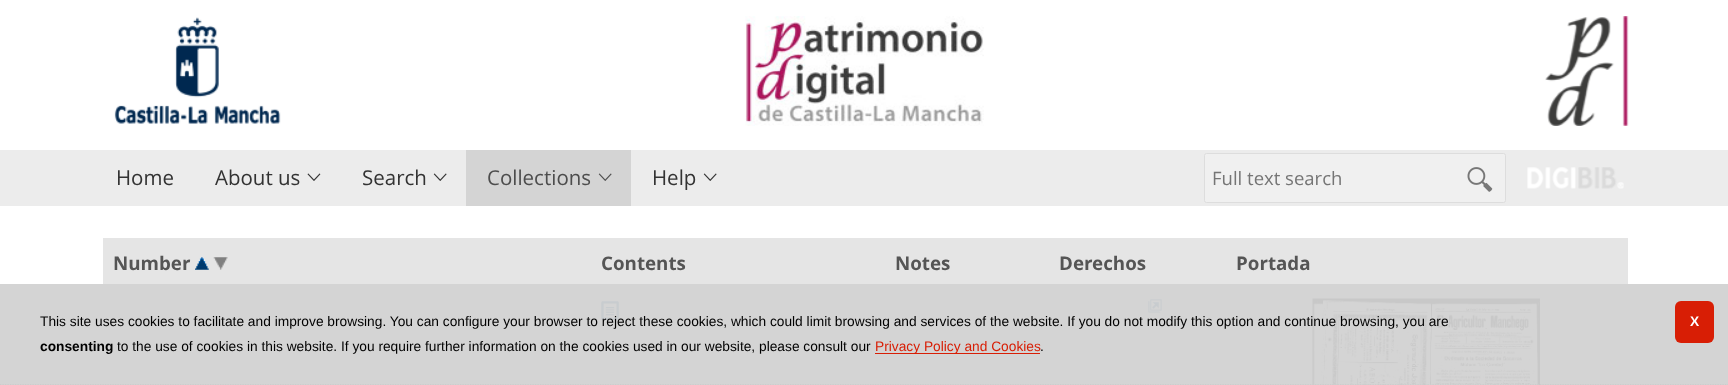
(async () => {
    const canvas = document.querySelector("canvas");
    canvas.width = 1728;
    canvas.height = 385;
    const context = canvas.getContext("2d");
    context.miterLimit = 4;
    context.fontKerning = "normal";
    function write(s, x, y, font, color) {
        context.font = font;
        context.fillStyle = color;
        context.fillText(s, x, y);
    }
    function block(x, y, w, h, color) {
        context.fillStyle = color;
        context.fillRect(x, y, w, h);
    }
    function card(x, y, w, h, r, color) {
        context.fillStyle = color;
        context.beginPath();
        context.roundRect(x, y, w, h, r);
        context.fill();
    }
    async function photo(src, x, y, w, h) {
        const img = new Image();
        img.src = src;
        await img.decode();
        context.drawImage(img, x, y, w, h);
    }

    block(0, 0, 1728, 385, "rgb(255, 255, 255)");
    block(0, 284, 1728, 101, "rgb(212, 212, 212)");
    await photo("media/1.png", 745, 16, 239, 110);
    await photo("media/2.png", 114, 17, 167, 107);
    await photo("media/3.png", 1545, 16, 84, 110);
    block(0, 150, 1728, 56, "rgb(236, 236, 236)");
    write("Home", 116, 185, "20.5px Open Sans", "rgb(51, 51, 51)");
    write("About us", 215, 185, "20.5px Open Sans", "rgb(51, 51, 51)");
    await photo("media/4.png", 307, 173, 14, 8);
    write("Search", 362, 185, "20.5px Open Sans", "rgb(51, 51, 51)");
    await photo("media/5.png", 433, 173, 14, 8);
    block(466, 150, 165, 56, "rgb(212, 212, 212)");
    write("Collections", 487, 185, "20.5px Open Sans", "rgb(77, 77, 77)");
    await photo("media/6.png", 598, 173, 14, 8);
    write("Help", 652, 185, "20.5px Open Sans", "rgb(51, 51, 51)");
    await photo("media/5.png", 703, 173, 14, 8);
    context.fillStyle = "rgb(240, 240, 240)";
    context.beginPath();
    context.roundRect(1204.5, 153.5, 301, 49, 2);
    context.fill();
    context.strokeStyle = "rgb(221, 221, 221)";
    context.stroke();
    write("Full text search", 1212, 185, "18.5px Open Sans", "rgb(117, 117, 117)");
    await photo("media/7.png", 1467, 167, 26, 25);
    await photo("media/8.png", 1527, 167, 97, 22);
    block(103, 238, 1525, 46, "rgb(229, 229, 229)");
    write("Number", 113, 270, "bold 18.75px Open Sans", "rgb(85, 85, 85)");
    await photo("media/9.png", 195, 257, 14, 13);
    await photo("media/10.png", 213, 257, 15, 13);
    write("Contents", 601, 270, "bold 18.75px Open Sans", "rgb(85, 85, 85)");
    write("Notes", 895, 270, "bold 18.75px Open Sans", "rgb(85, 85, 85)");
    write("Derechos", 1059, 270, "bold 18.75px Open Sans", "rgb(85, 85, 85)");
    write("Portada", 1236, 270, "bold 18.75px Open Sans", "rgb(85, 85, 85)");
    await photo("media/11.png", 601, 301, 18, 19);
    await photo("media/12.png", 1148, 299, 14, 14);
    await photo("media/13.png", 1312, 298, 228, 87);
    context.beginPath();
    context.moveTo(0, 384.5);
    context.lineTo(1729, 384.5);
    context.strokeStyle = "rgb(204, 204, 204)";
    context.lineWidth = 1.2;
    context.setLineDash([1.25, 1.25]);
    context.stroke();
    write("This site uses cookies to facilitate and improve browsing. You can configure your browser to reject these cookies, which could limit browsing and services of the website. If you do not modify this option and continue browsing, you are", 40, 326, "13.75px Liberation Sans", "rgb(0, 0, 0)");
    write("consenting", 40, 351, "bold 13.75px Liberation Sans", "rgb(0, 0, 0)");
    write("to the use of cookies in this website. If you require further information on the cookies used in our website, please consult our", 117, 351, "13.75px Liberation Sans", "rgb(0, 0, 0)");
    block(875, 353, 165, 1, "rgb(216, 30, 5)");
    write("Privacy Policy and Cookies", 875, 351, "13.75px Liberation Sans", "rgb(216, 30, 5)");
    write(".", 1040, 351, "13.75px Liberation Sans", "rgb(0, 0, 0)");
    card(1675, 301, 39, 42, 6, "rgb(216, 30, 5)");
    context.letterSpacing = "-1px";
    write("X", 1690, 326, "bold 13.75px Liberation Sans", "rgb(255, 255, 255)");
})();
